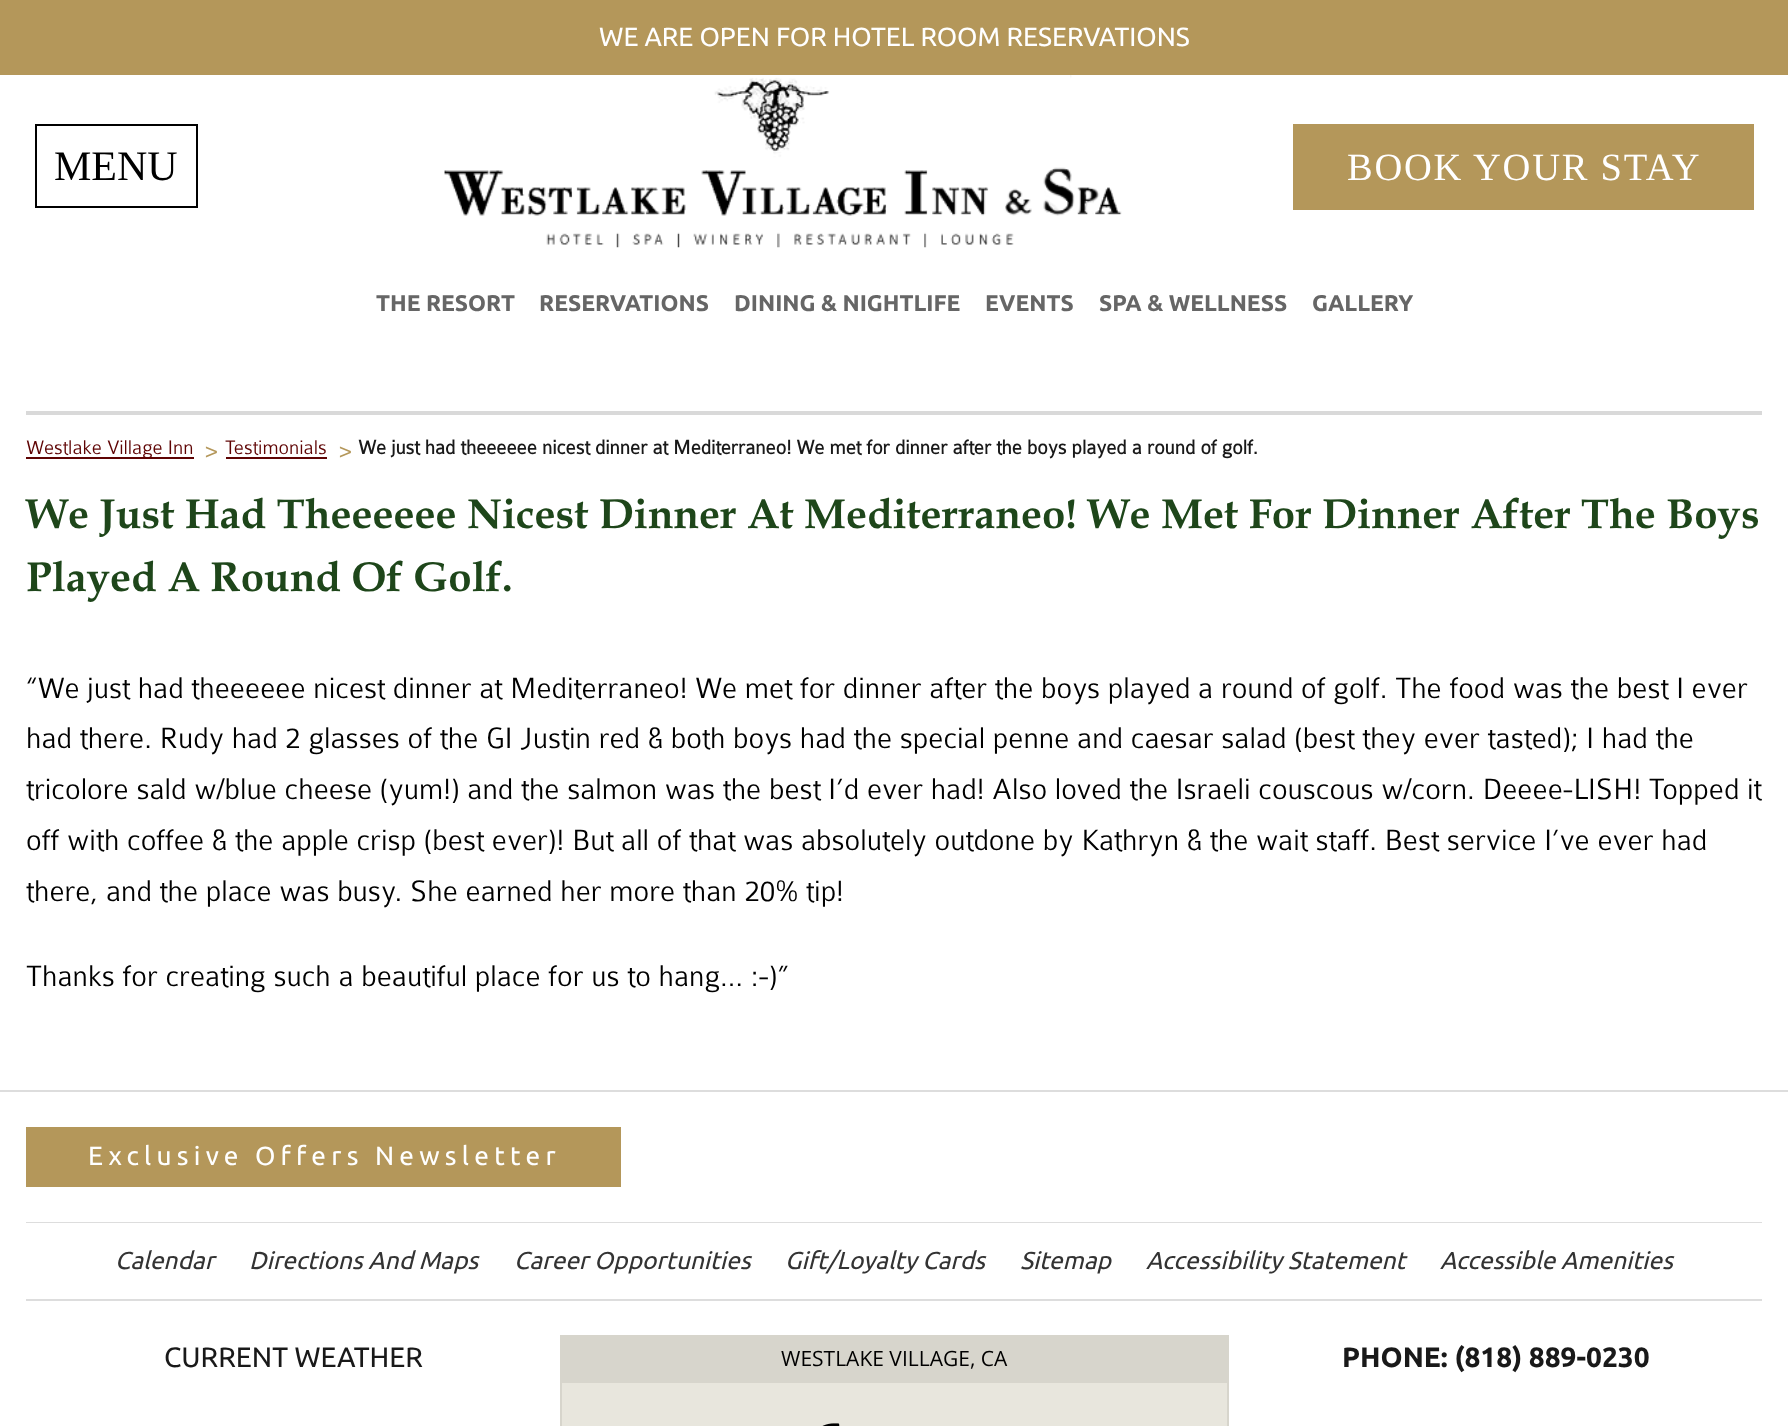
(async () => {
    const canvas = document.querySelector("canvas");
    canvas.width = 1788;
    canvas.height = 1426;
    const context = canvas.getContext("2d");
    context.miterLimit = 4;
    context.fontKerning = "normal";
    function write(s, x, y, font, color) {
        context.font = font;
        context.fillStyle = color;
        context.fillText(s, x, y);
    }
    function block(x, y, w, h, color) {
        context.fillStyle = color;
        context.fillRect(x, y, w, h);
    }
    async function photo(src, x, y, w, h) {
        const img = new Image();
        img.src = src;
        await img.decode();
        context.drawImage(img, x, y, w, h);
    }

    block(0, 0, 1788, 1426, "rgb(255, 255, 255)");
    block(0, 0, 1788, 75, "rgb(180, 151, 90)");
    write("WE ARE OPEN FOR HOTEL ROOM RESERVATIONS", 599, 46, "26.25px Ubuntu", "rgb(255, 255, 255)");
    context.strokeStyle = "rgb(0, 0, 0)";
    context.lineWidth = 2;
    context.strokeRect(36, 125, 161, 82);
    write("MENU", 54, 180, "42px Liberation Serif", "rgb(0, 0, 0)");
    await photo("media/1.png", 444, 75, 678, 173);
    block(1293, 124, 461, 86, "rgb(180, 151, 90)");
    context.letterSpacing = "1.75px";
    write("BOOK YOUR STAY", 1347, 180, "38.5px Liberation Serif", "rgb(255, 255, 255)");
    context.letterSpacing = "0px";
    write("THE RESORT", 376, 311, "bold 22.75px Ubuntu", "rgb(102, 102, 102)");
    write("RESERVATIONS", 539, 311, "bold 22.75px Ubuntu", "rgb(102, 102, 102)");
    write("DINING & NIGHTLIFE", 734, 311, "bold 22.75px Ubuntu", "rgb(102, 102, 102)");
    write("EVENTS", 985, 311, "bold 22.75px Ubuntu", "rgb(102, 102, 102)");
    write("SPA & WELLNESS", 1099, 311, "bold 22.75px Ubuntu", "rgb(102, 102, 102)");
    write("GALLERY", 1312, 311, "bold 22.75px Ubuntu", "rgb(102, 102, 102)");
    block(26, 411, 1736, 4, "rgb(217, 217, 217)");
    block(26, 457, 168, 2, "rgb(94, 3, 3)");
    write("Westlake Village Inn", 26, 454, "300 21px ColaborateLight", "rgb(94, 3, 3)");
    write(">", 205, 458, "300 26.25px ColaborateLight", "rgb(180, 151, 90)");
    write("Testimonials", 225, 454, "300 21px ColaborateLight", "rgb(94, 3, 3)");
    block(226, 457, 101, 2, "rgb(94, 3, 3)");
    write(">", 339, 458, "300 26.25px ColaborateLight", "rgb(180, 151, 90)");
    write("We just had theeeeee nicest dinner at Mediterraneo! We met for dinner after the boys played a round of golf.", 358, 454, "bold 21px ColaborateLight", "rgb(25, 25, 25)");
    write("We Just Had Theeeeee Nicest Dinner At Mediterraneo! We Met For Dinner After The Boys", 26, 528, "bold 42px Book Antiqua", "rgb(30, 70, 26)");
    write("Played A Round Of Golf.", 26, 591, "bold 42px Book Antiqua", "rgb(30, 70, 26)");
    write("“We just had theeeeee nicest dinner at Mediterraneo! We met for dinner after the boys played a round of golf. The food was the best I ever", 26, 698, "300 31.5px ColaborateLight", "rgb(0, 0, 0)");
    write("had there. Rudy had 2 glasses of the GI Justin red & both boys had the special penne and caesar salad (best they ever tasted); I had the", 26, 748, "300 31.5px ColaborateLight", "rgb(0, 0, 0)");
    write("tricolore sald w/blue cheese (yum!) and the salmon was the best I’d ever had! Also loved the Israeli couscous w/corn. Deeee-LISH! Topped it", 26, 799, "300 31.5px ColaborateLight", "rgb(0, 0, 0)");
    write("off with coffee & the apple crisp (best ever)! But all of that was absolutely outdone by Kathryn & the wait staff. Best service I’ve ever had", 26, 850, "300 31.5px ColaborateLight", "rgb(0, 0, 0)");
    write("there, and the place was busy. She earned her more than 20% tip!", 26, 901, "300 31.5px ColaborateLight", "rgb(0, 0, 0)");
    write("Thanks for creating such a beautiful place for us to hang… :-)”", 26, 986, "300 31.5px ColaborateLight", "rgb(0, 0, 0)");
    block(0, 1090, 1788, 2, "rgb(221, 221, 221)");
    block(26, 1127, 595, 60, "rgb(180, 151, 90)");
    context.letterSpacing = "5.25px";
    write("Exclusive Offers Newsletter", 88, 1165, "26.25px Ubuntu", "rgb(255, 255, 255)");
    block(26, 1222, 1736, 1, "rgb(221, 221, 221)");
    block(26, 1299, 1736, 2, "rgb(221, 221, 221)");
    context.letterSpacing = "0px";
    write("Calendar", 115, 1269, "italic 24.5px Ubuntu", "rgb(51, 51, 51)");
    write("Directions And Maps", 249, 1269, "italic 24.5px Ubuntu", "rgb(51, 51, 51)");
    write("Career Opportunities", 514, 1269, "italic 24.5px Ubuntu", "rgb(51, 51, 51)");
    write("Gift/Loyalty Cards", 785, 1269, "italic 24.5px Ubuntu", "rgb(51, 51, 51)");
    write("Sitemap", 1020, 1269, "italic 24.5px Ubuntu", "rgb(51, 51, 51)");
    write("Accessibility Statement", 1146, 1269, "italic 24.5px Ubuntu", "rgb(51, 51, 51)");
    write("Accessible Amenities", 1440, 1269, "italic 24.5px Ubuntu", "rgb(51, 51, 51)");
    write("CURRENT WEATHER", 164, 1367, "28px Ubuntu", "rgb(25, 25, 25)");
    block(562, 1383, 665, 43, "rgb(232, 230, 221)");
    context.strokeStyle = "rgb(215, 213, 204)";
    context.strokeRect(561, 1336, 667, 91);
    block(562, 1337, 665, 46, "rgb(215, 213, 204)");
    write("WESTLAKE VILLAGE, CA", 781, 1366, "21px Open Sans", "rgb(0, 0, 0)");
    await photo("media/2.png", 822, 1423, 18, 3);
    write("PHONE: (818) 889-0230", 1342, 1367, "bold 28px Ubuntu", "rgb(25, 25, 25)");
})();
